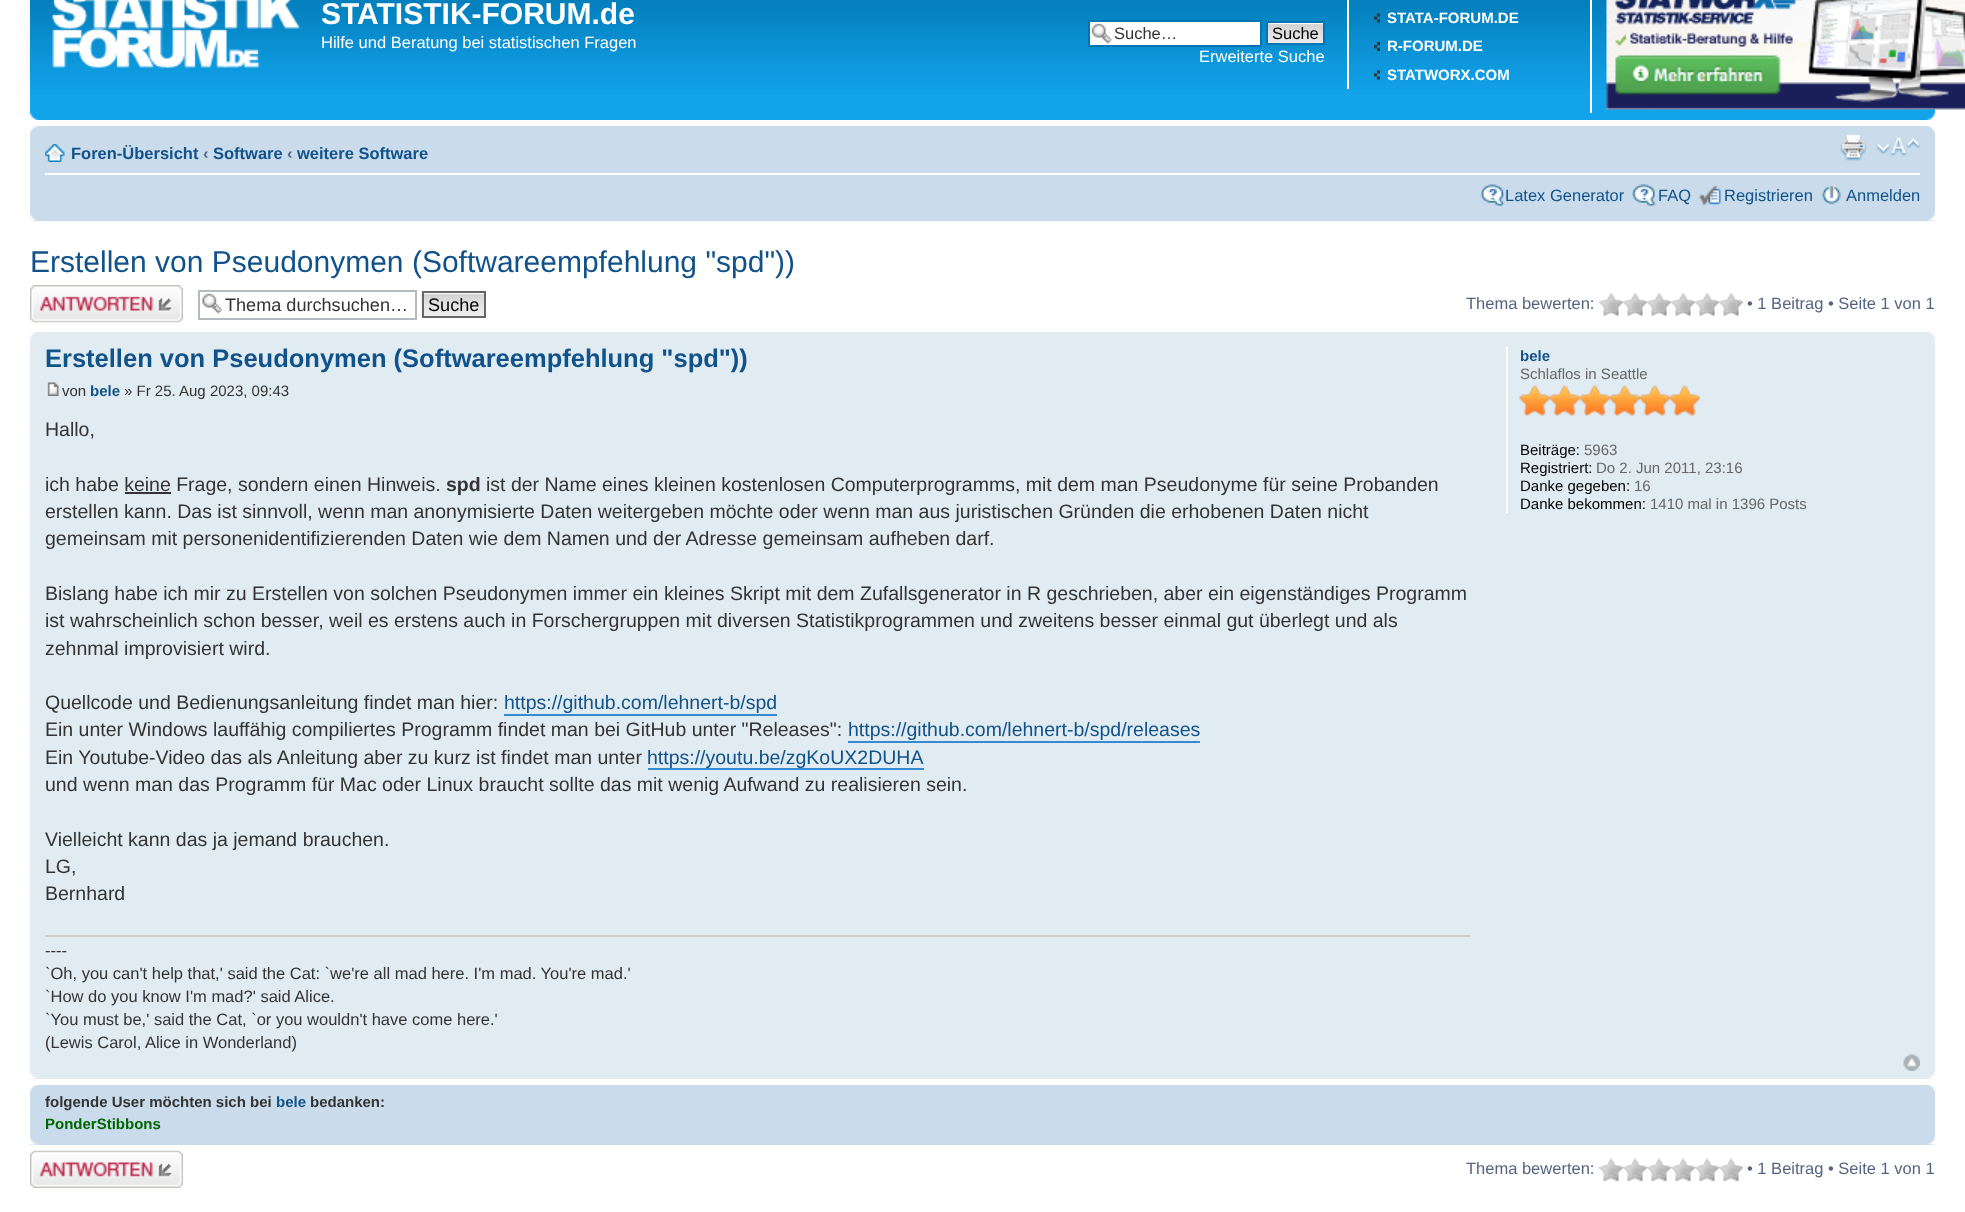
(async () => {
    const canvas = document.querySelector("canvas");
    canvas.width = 1965;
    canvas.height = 1212;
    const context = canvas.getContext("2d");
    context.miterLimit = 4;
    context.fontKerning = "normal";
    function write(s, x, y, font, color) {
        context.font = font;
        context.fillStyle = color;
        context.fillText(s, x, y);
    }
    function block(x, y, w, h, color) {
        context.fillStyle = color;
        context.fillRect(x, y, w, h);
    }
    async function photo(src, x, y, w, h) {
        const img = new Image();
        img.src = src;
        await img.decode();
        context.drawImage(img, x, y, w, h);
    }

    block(0, 0, 1965, 1212, "rgb(255, 255, 255)");
    block(30, 90, 1905, 30, "rgb(18, 163, 235)");
    await photo("media/1.png", 30, 0, 1577, 90);
    await photo("media/2.png", 52, 0, 249, 68);
    write("STATISTIK-FORUM.de", 321, 24, "bold 30px Liberation Sans", "rgb(255, 255, 255)");
    write("Hilfe und Beratung bei statistischen Fragen", 321, 48, "16.5px Liberation Sans", "rgb(255, 255, 255)");
    block(1090, 22, 170, 23, "rgb(255, 255, 255)");
    await photo("media/3.png", 1091, 23, 21, 21);
    context.strokeStyle = "rgb(0, 117, 176)";
    context.lineWidth = 2;
    context.strokeRect(1089, 21, 172, 25);
    write("Suche…", 1114, 39, "16.5px Liberation Sans", "rgb(51, 51, 51)");
    block(1268, 23, 55, 1, "rgb(250, 250, 250)");
    await photo("media/4.png", 1268, 24, 55, 19);
    context.strokeRect(1267, 22, 57, 22);
    write("Suche", 1272, 39, "16.5px Liberation Sans", "rgb(0, 0, 0)");
    write("Erweiterte Suche", 1199, 62, "16.5px Liberation Sans", "rgb(255, 255, 255)");
    block(1347, 0, 2, 89, "rgb(255, 255, 255)");
    await photo("media/5.png", 1374, 13, 6, 10);
    write("STATA-FORUM.DE", 1387, 23, "bold 15px Liberation Sans", "rgb(255, 255, 255)");
    await photo("media/6.png", 1374, 42, 6, 9);
    write("R-FORUM.DE", 1387, 51, "bold 15px Liberation Sans", "rgb(255, 255, 255)");
    await photo("media/7.png", 1374, 70, 6, 10);
    write("STATWORX.COM", 1387, 80, "bold 15px Liberation Sans", "rgb(255, 255, 255)");
    block(1590, 0, 2, 113, "rgb(255, 255, 255)");
    await photo("media/8.png", 1606, 0, 359, 110);
    await photo("media/9.png", 30, 112, 8, 8);
    await photo("media/10.png", 1927, 112, 8, 8);
    block(30, 126, 1905, 95, "rgb(202, 220, 235)");
    await photo("media/11.png", 30, 126, 8, 8);
    await photo("media/12.png", 1927, 126, 8, 8);
    block(45, 173, 1875, 2, "rgb(255, 255, 255)");
    await photo("media/13.png", 45, 144, 20, 18);
    write("Foren-Übersicht", 71, 159, "bold 16.5px Liberation Sans", "rgb(16, 82, 137)");
    write("‹", 203, 159, "bold 16.5px Liberation Sans", "rgb(83, 100, 130)");
    write("Software", 213, 159, "bold 16.5px Liberation Sans", "rgb(16, 82, 137)");
    write("‹", 287, 159, "bold 16.5px Liberation Sans", "rgb(83, 100, 130)");
    write("weitere Software", 297, 159, "bold 16.5px Liberation Sans", "rgb(16, 82, 137)");
    await photo("media/14.png", 1840, 134, 27, 27);
    await photo("media/15.png", 1876, 137, 44, 20);
    await photo("media/16.png", 1480, 184, 25, 22);
    write("Latex Generator", 1505, 201, "16.5px Liberation Sans", "rgb(16, 82, 137)");
    await photo("media/17.png", 1632, 184, 24, 22);
    write("FAQ", 1658, 201, "16.5px Liberation Sans", "rgb(16, 82, 137)");
    await photo("media/18.png", 1699, 185, 22, 21);
    write("Registrieren", 1724, 201, "16.5px Liberation Sans", "rgb(16, 82, 137)");
    await photo("media/19.png", 1822, 185, 19, 20);
    write("Anmelden", 1846, 201, "16.5px Liberation Sans", "rgb(16, 82, 137)");
    await photo("media/20.png", 30, 213, 8, 8);
    await photo("media/21.png", 1927, 213, 8, 8);
    write("Erstellen von Pseudonymen (Softwareempfehlung \"spd\"))", 30, 272, "30px Liberation Sans", "rgb(16, 82, 137)");
    await photo("media/22.png", 30, 285, 153, 38);
    await photo("media/23.png", 202, 293, 21, 21);
    context.strokeStyle = "rgb(180, 186, 192)";
    context.strokeRect(199, 291, 217, 28);
    write("Thema durchsuchen…", 225, 311, "18.1px Liberation Sans", "rgb(51, 51, 51)");
    await photo("media/24.png", 421, 293, 63, 25);
    context.strokeStyle = "rgb(102, 102, 102)";
    context.strokeRect(423, 292, 62, 25);
    write("Suche", 428, 311, "18.1px Liberation Sans", "rgb(0, 0, 0)");
    write("Thema bewerten:", 1466, 309, "16.5px Liberation Sans", "rgb(83, 100, 130)");
    await photo("media/25.png", 1599, 292, 24, 25);
    await photo("media/25.png", 1623, 292, 24, 25);
    await photo("media/25.png", 1647, 292, 24, 25);
    await photo("media/25.png", 1671, 292, 24, 25);
    await photo("media/25.png", 1695, 292, 24, 25);
    await photo("media/25.png", 1719, 292, 24, 25);
    write("• 1 Beitrag • Seite 1 von 1", 1747, 309, "16.5px Liberation Sans", "rgb(83, 100, 130)");
    block(30, 332, 1905, 747, "rgb(225, 235, 242)");
    await photo("media/26.png", 30, 332, 7, 7);
    await photo("media/27.png", 1928, 332, 7, 7);
    write("Erstellen von Pseudonymen (Softwareempfehlung \"spd\"))", 45, 367, "bold 25.5px Liberation Sans", "rgb(16, 82, 137)");
    await photo("media/28.png", 47, 382, 12, 14);
    write("von", 62, 396, "15px Liberation Sans", "rgb(51, 51, 51)");
    write("bele", 90, 396, "bold 15px Liberation Sans", "rgb(16, 82, 137)");
    write("» Fr 25. Aug 2023, 09:43", 124, 396, "15px Liberation Sans", "rgb(51, 51, 51)");
    write("Hallo,", 45, 436, "19.5px Liberation Sans", "rgb(51, 51, 51)");
    write("ich habe keine Frage, sondern einen Hinweis.", 45, 491, "19.5px Liberation Sans", "rgb(51, 51, 51)");
    write("spd", 446, 491, "bold 19.5px Liberation Sans", "rgb(51, 51, 51)");
    write("ist der Name eines kleinen kostenlosen Computerprogramms, mit dem man Pseudonyme für seine Probanden", 486, 491, "19.5px Liberation Sans", "rgb(51, 51, 51)");
    block(125, 492, 46, 2, "rgb(51, 51, 51)");
    write("erstellen kann. Das ist sinnvoll, wenn man anonymisierte Daten weitergeben möchte oder wenn man aus juristischen Gründen die erhobenen Daten nicht", 45, 518, "19.5px Liberation Sans", "rgb(51, 51, 51)");
    write("gemeinsam mit personenidentifizierenden Daten wie dem Namen und der Adresse gemeinsam aufheben darf.", 45, 545, "19.5px Liberation Sans", "rgb(51, 51, 51)");
    write("Bislang habe ich mir zu Erstellen von solchen Pseudonymen immer ein kleines Skript mit dem Zufallsgenerator in R geschrieben, aber ein eigenständiges Programm", 45, 600, "19.5px Liberation Sans", "rgb(51, 51, 51)");
    write("ist wahrscheinlich schon besser, weil es erstens auch in Forschergruppen mit diversen Statistikprogrammen und zweitens besser einmal gut überlegt und als", 45, 627, "19.5px Liberation Sans", "rgb(51, 51, 51)");
    write("zehnmal improvisiert wird.", 45, 655, "19.5px Liberation Sans", "rgb(51, 51, 51)");
    write("Quellcode und Bedienungsanleitung findet man hier:", 45, 709, "19.5px Liberation Sans", "rgb(51, 51, 51)");
    write("https://github.com/lehnert-b/spd", 504, 709, "19.5px Liberation Sans", "rgb(16, 82, 137)");
    block(504, 714, 273, 2, "rgb(54, 138, 210)");
    write("Ein unter Windows lauffähig compiliertes Programm findet man bei GitHub unter \"Releases\":", 45, 736, "19.5px Liberation Sans", "rgb(51, 51, 51)");
    write("https://github.com/lehnert-b/spd/releases", 848, 736, "19.5px Liberation Sans", "rgb(16, 82, 137)");
    block(848, 741, 352, 2, "rgb(54, 138, 210)");
    write("Ein Youtube-Video das als Anleitung aber zu kurz ist findet man unter", 45, 764, "19.5px Liberation Sans", "rgb(51, 51, 51)");
    block(648, 768, 276, 2, "rgb(54, 138, 210)");
    write("https://youtu.be/zgKoUX2DUHA", 647, 764, "19.5px Liberation Sans", "rgb(16, 82, 137)");
    write("und wenn man das Programm für Mac oder Linux braucht sollte das mit wenig Aufwand zu realisieren sein.", 45, 791, "19.5px Liberation Sans", "rgb(51, 51, 51)");
    write("Vielleicht kann das ja jemand brauchen.", 45, 846, "19.5px Liberation Sans", "rgb(51, 51, 51)");
    write("LG,", 45, 873, "19.5px Liberation Sans", "rgb(51, 51, 51)");
    write("Bernhard", 45, 900, "19.5px Liberation Sans", "rgb(51, 51, 51)");
    block(45, 935, 1425, 2, "rgb(204, 204, 204)");
    write("----", 45, 956, "16.5px Liberation Sans", "rgb(51, 51, 51)");
    write("`Oh, you can't help that,' said the Cat: `we're all mad here. I'm mad. You're mad.'", 45, 979, "16.5px Liberation Sans", "rgb(51, 51, 51)");
    write("`How do you know I'm mad?' said Alice.", 45, 1002, "16.5px Liberation Sans", "rgb(51, 51, 51)");
    write("`You must be,' said the Cat, `or you wouldn't have come here.'", 45, 1025, "16.5px Liberation Sans", "rgb(51, 51, 51)");
    write("(Lewis Carol, Alice in Wonderland)", 45, 1048, "16.5px Liberation Sans", "rgb(51, 51, 51)");
    block(1506, 347, 2, 166, "rgb(255, 255, 255)");
    write("bele", 1520, 361, "bold 15px Liberation Sans", "rgb(16, 82, 137)");
    write("Schlaflos in Seattle", 1520, 379, "15px Liberation Sans", "rgb(102, 102, 102)");
    await photo("media/29.png", 1519, 385, 181, 31);
    write("Beiträge:", 1520, 455, "15px Liberation Sans", "rgb(0, 0, 0)");
    write("5963", 1584, 455, "15px Liberation Sans", "rgb(102, 102, 102)");
    write("Registriert:", 1520, 473, "15px Liberation Sans", "rgb(0, 0, 0)");
    write("Do 2. Jun 2011, 23:16", 1596, 473, "15px Liberation Sans", "rgb(102, 102, 102)");
    write("Danke gegeben:", 1520, 491, "15px Liberation Sans", "rgb(0, 0, 0)");
    write("16", 1634, 491, "15px Liberation Sans", "rgb(102, 102, 102)");
    write("Danke bekommen:", 1520, 509, "15px Liberation Sans", "rgb(0, 0, 0)");
    write("1410 mal in 1396 Posts", 1650, 509, "15px Liberation Sans", "rgb(102, 102, 102)");
    await photo("media/30.png", 1903, 1054, 17, 17);
    await photo("media/31.png", 30, 1071, 7, 8);
    await photo("media/32.png", 1928, 1071, 7, 8);
    block(30, 1085, 1905, 60, "rgb(202, 220, 235)");
    await photo("media/33.png", 30, 1085, 8, 7);
    await photo("media/34.png", 1927, 1085, 8, 7);
    write("folgende User möchten sich bei", 45, 1107, "bold 15px Liberation Sans", "rgb(51, 51, 51)");
    write("bele", 276, 1107, "bold 15px Liberation Sans", "rgb(16, 82, 137)");
    write("bedanken:", 310, 1107, "bold 15px Liberation Sans", "rgb(51, 51, 51)");
    write("PonderStibbons", 45, 1129, "bold 15px Liberation Sans", "rgb(0, 102, 0)");
    await photo("media/20.png", 30, 1137, 8, 8);
    await photo("media/21.png", 1927, 1137, 8, 8);
    await photo("media/35.png", 30, 1150, 153, 38);
    write("Thema bewerten:", 1466, 1174, "16.5px Liberation Sans", "rgb(83, 100, 130)");
    await photo("media/36.png", 1599, 1158, 24, 24);
    await photo("media/36.png", 1623, 1158, 24, 24);
    await photo("media/36.png", 1647, 1158, 24, 24);
    await photo("media/36.png", 1671, 1158, 24, 24);
    await photo("media/36.png", 1695, 1158, 24, 24);
    await photo("media/36.png", 1719, 1158, 24, 24);
    write("• 1 Beitrag • Seite 1 von 1", 1747, 1174, "16.5px Liberation Sans", "rgb(83, 100, 130)");
})();
